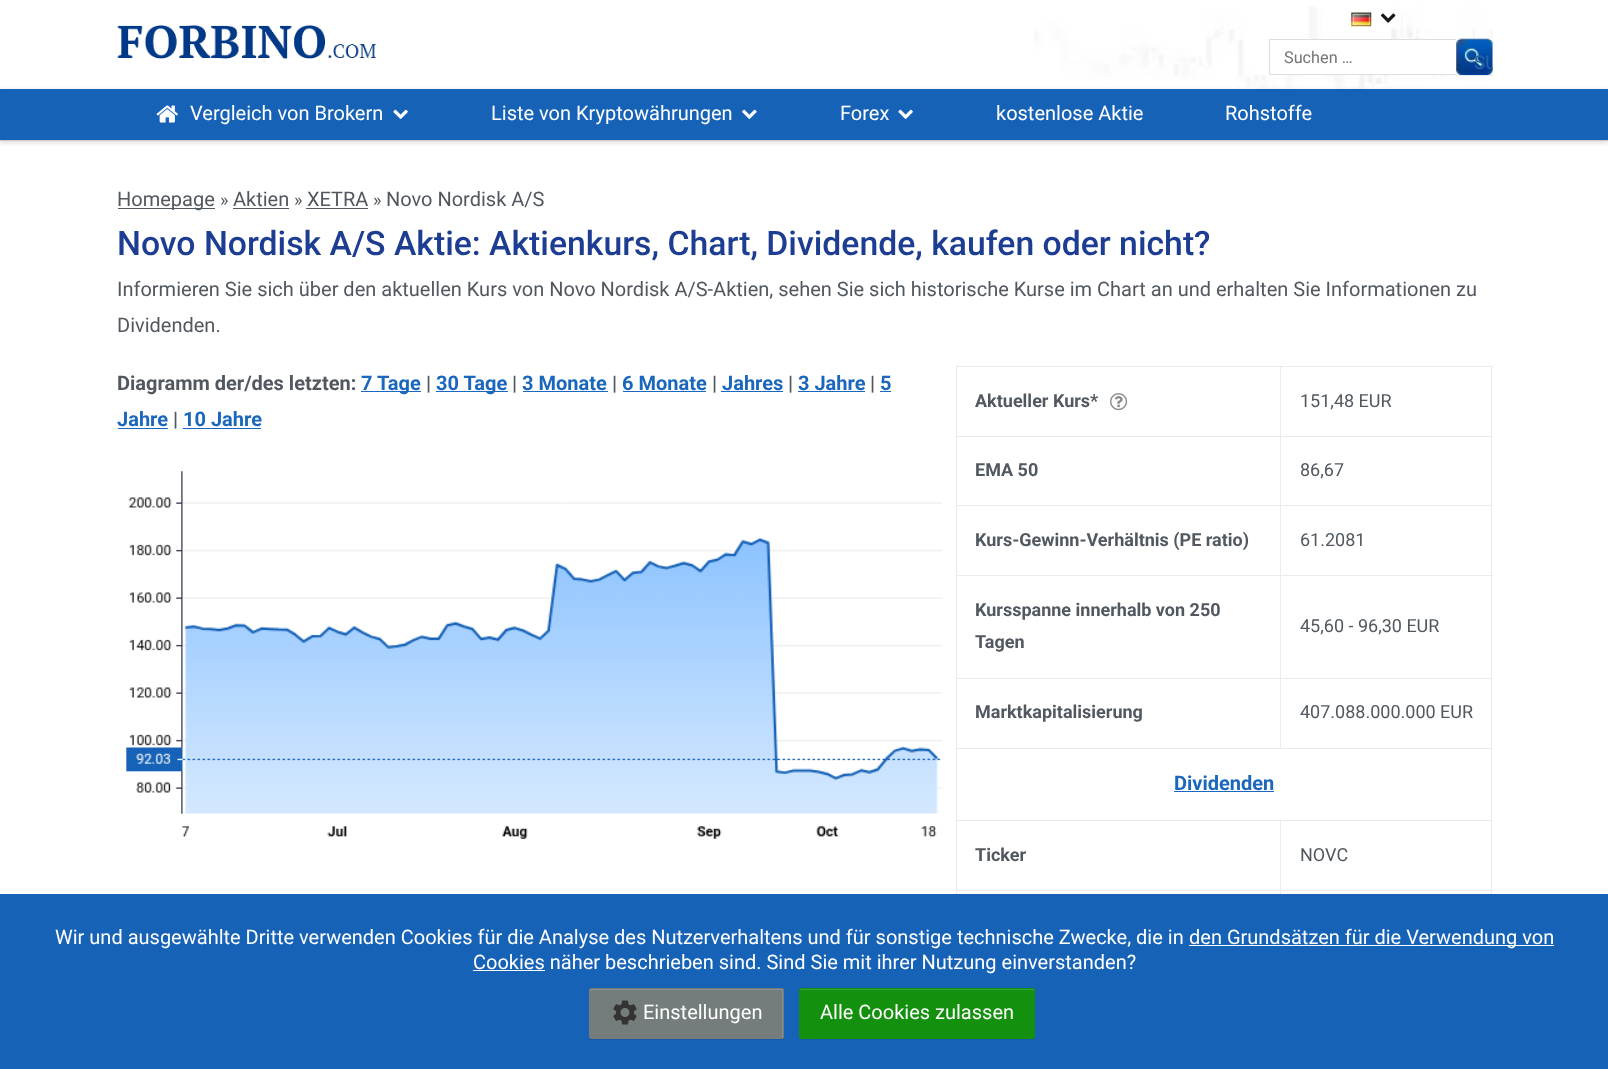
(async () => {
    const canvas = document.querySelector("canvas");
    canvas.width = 1608;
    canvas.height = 1069;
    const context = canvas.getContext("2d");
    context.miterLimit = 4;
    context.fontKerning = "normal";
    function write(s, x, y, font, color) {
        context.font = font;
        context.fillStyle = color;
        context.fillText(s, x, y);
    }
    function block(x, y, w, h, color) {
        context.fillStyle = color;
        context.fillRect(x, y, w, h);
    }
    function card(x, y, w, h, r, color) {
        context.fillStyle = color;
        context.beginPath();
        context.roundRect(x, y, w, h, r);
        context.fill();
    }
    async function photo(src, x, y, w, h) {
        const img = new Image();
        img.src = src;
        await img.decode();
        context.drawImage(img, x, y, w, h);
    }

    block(0, 0, 1608, 1069, "rgb(255, 255, 255)");
    await photo("media/1.png", 1034, 5, 459, 84);
    await photo("media/2.png", 117, 25, 260, 34);
    block(1286, 40, 170, 34, "rgb(255, 255, 255)");
    block(1269, 39, 187, 1, "rgb(222, 222, 222)");
    block(1269, 74, 187, 1, "rgb(222, 222, 222)");
    block(1269, 39, 1, 36, "rgb(222, 222, 222)");
    write("Suchen …", 1284, 63, "16.25px Roboto", "rgb(117, 117, 117)");
    context.save();
    context.beginPath();
    context.moveTo(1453, 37);
    context.lineTo(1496, 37);
    context.lineTo(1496, 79);
    context.lineTo(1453, 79);
    context.closePath();
    context.moveTo(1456, 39);
    context.lineTo(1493, 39);
    context.lineTo(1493, 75);
    context.lineTo(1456, 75);
    context.closePath();
    context.clip("evenodd");
    context.fillStyle = "rgba(0, 0, 0, 0.07)";
    context.filter = "blur(0.5px)";
    context.beginPath();
    context.rect(1456, 40, 37, 36);
    context.fill();
    context.filter = "none";
    context.restore();
    await photo("media/3.png", 1456, 38, 37, 37);
    block(1456, 39, 37, 1, "rgba(255, 255, 255, 0.15)");
    context.save();
    context.beginPath();
    context.rect(1456, 39, 37, 36);
    context.clip();
    write("SU", 1474, 69, "19px Roboto", "rgb(40, 99, 168)");
    context.restore();
    context.fillStyle = "rgb(221, 221, 221)";
    context.filter = "blur(2px)";
    context.beginPath();
    context.rect(0, 90, 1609, 53);
    context.fill();
    context.filter = "none";
    block(0, 89, 1608, 51, "rgb(22, 98, 183)");
    block(0, 140, 1608, 1, "rgb(204, 204, 204)");
    await photo("media/4.png", 1351, 12, 21, 15);
    await photo("media/5.png", 1380, 13, 16, 10);
    await photo("media/6.png", 156, 105, 22, 18);
    write("Vergleich von Brokern", 190, 120, "20px Roboto", "rgb(255, 255, 255)");
    await photo("media/7.png", 393, 109, 15, 10);
    write("Liste von Kryptowährungen", 491, 120, "20px Roboto", "rgb(255, 255, 255)");
    await photo("media/8.png", 742, 109, 15, 10);
    write("Forex", 840, 120, "20px Roboto", "rgb(255, 255, 255)");
    await photo("media/7.png", 898, 109, 15, 10);
    write("kostenlose Aktie", 996, 120, "20px Roboto", "rgb(255, 255, 255)");
    write("Rohstoffe", 1225, 120, "20px Roboto", "rgb(255, 255, 255)");
    block(118, 208, 97, 1, "rgb(81, 88, 95)");
    write("Homepage", 117, 206, "20px Roboto", "rgb(81, 88, 95)");
    write("»", 220, 206, "18px Roboto", "rgb(81, 88, 95)");
    write("Aktien", 233, 206, "20px Roboto", "rgb(81, 88, 95)");
    block(233, 208, 56, 1, "rgb(81, 88, 95)");
    write("»", 294, 206, "18px Roboto", "rgb(81, 88, 95)");
    write("XETRA", 307, 206, "20px Roboto", "rgb(81, 88, 95)");
    block(306, 208, 62, 1, "rgb(81, 88, 95)");
    write("»", 373, 206, "18px Roboto", "rgb(81, 88, 95)");
    write("Novo Nordisk A/S", 386, 206, "20px Roboto", "rgb(81, 88, 95)");
    write("Novo Nordisk A/S Aktie: Aktienkurs, Chart, Dividende, kaufen oder nicht?", 117, 255, "500 33.75px Roboto", "rgb(28, 61, 146)");
    write("Informieren Sie sich über den aktuellen Kurs von Novo Nordisk A/S-Aktien, sehen Sie sich historische Kurse im Chart an und erhalten Sie Informationen zu", 117, 296, "20px Roboto", "rgb(81, 88, 95)");
    write("Dividenden.", 117, 332, "20px Roboto", "rgb(81, 88, 95)");
    write("Diagramm der/des letzten:", 117, 390, "bold 20px Roboto", "rgb(81, 88, 95)");
    block(361, 391, 60, 1, "rgb(26, 103, 189)");
    write("7 Tage", 361, 390, "bold 20px Roboto", "rgb(26, 103, 189)");
    write("|", 426, 390, "bold 20px Roboto", "rgb(81, 88, 95)");
    block(436, 391, 72, 1, "rgb(26, 103, 189)");
    write("30 Tage", 436, 390, "bold 20px Roboto", "rgb(26, 103, 189)");
    write("|", 512, 390, "bold 20px Roboto", "rgb(81, 88, 95)");
    write("3 Monate", 522, 390, "bold 20px Roboto", "rgb(26, 103, 189)");
    block(523, 391, 85, 1, "rgb(26, 103, 189)");
    write("|", 612, 390, "bold 20px Roboto", "rgb(81, 88, 95)");
    write("6 Monate", 622, 390, "bold 20px Roboto", "rgb(26, 103, 189)");
    block(623, 391, 83, 1, "rgb(26, 103, 189)");
    write("|", 712, 390, "bold 20px Roboto", "rgb(81, 88, 95)");
    write("Jahres", 722, 390, "bold 20px Roboto", "rgb(26, 103, 189)");
    block(721, 391, 62, 1, "rgb(26, 103, 189)");
    write("|", 788, 390, "bold 20px Roboto", "rgb(81, 88, 95)");
    write("3 Jahre", 798, 390, "bold 20px Roboto", "rgb(26, 103, 189)");
    block(798, 391, 67, 1, "rgb(26, 103, 189)");
    write("|", 870, 390, "bold 20px Roboto", "rgb(81, 88, 95)");
    write("5", 880, 390, "bold 20px Roboto", "rgb(26, 103, 189)");
    block(880, 391, 11, 1, "rgb(26, 103, 189)");
    write("Jahre", 117, 426, "bold 20px Roboto", "rgb(26, 103, 189)");
    block(118, 428, 50, 1, "rgb(26, 103, 189)");
    write("|", 173, 426, "bold 20px Roboto", "rgb(81, 88, 95)");
    write("10 Jahre", 183, 426, "bold 20px Roboto", "rgb(26, 103, 189)");
    block(183, 428, 78, 1, "rgb(26, 103, 189)");
    await photo("media/10.png", 182, 502, 761, 312);
    await photo("media/11.png", 182, 813, 755, 26);
    await photo("media/9.png", 126, 471, 57, 343);
    block(1280, 366, 213, 1, "rgb(233, 236, 239)");
    block(1280, 436, 213, 1, "rgb(233, 236, 239)");
    block(1280, 505, 213, 1, "rgb(233, 236, 239)");
    block(1280, 575, 213, 1, "rgb(233, 236, 239)");
    block(1280, 678, 213, 1, "rgb(233, 236, 239)");
    block(956, 748, 537, 1, "rgb(233, 236, 239)");
    block(1280, 678, 1, 71, "rgb(233, 236, 239)");
    block(956, 678, 325, 1, "rgb(233, 236, 239)");
    block(1280, 575, 1, 104, "rgb(233, 236, 239)");
    block(956, 575, 325, 1, "rgb(233, 236, 239)");
    block(1280, 505, 1, 71, "rgb(233, 236, 239)");
    block(956, 505, 325, 1, "rgb(233, 236, 239)");
    block(1280, 436, 1, 70, "rgb(233, 236, 239)");
    block(956, 436, 325, 1, "rgb(233, 236, 239)");
    block(1280, 366, 1, 72, "rgb(233, 236, 239)");
    block(956, 366, 325, 1, "rgb(233, 236, 239)");
    block(1280, 820, 213, 1, "rgb(233, 236, 239)");
    block(1280, 890, 213, 1, "rgb(233, 236, 239)");
    block(1280, 890, 1, 4, "rgb(233, 236, 239)");
    block(956, 890, 325, 1, "rgb(233, 236, 239)");
    block(1280, 820, 1, 71, "rgb(233, 236, 239)");
    block(956, 820, 325, 1, "rgb(233, 236, 239)");
    block(956, 890, 1, 4, "rgb(233, 236, 239)");
    block(956, 820, 1, 71, "rgb(233, 236, 239)");
    block(956, 748, 1, 73, "rgb(233, 236, 239)");
    block(956, 678, 1, 71, "rgb(233, 236, 239)");
    block(956, 575, 1, 104, "rgb(233, 236, 239)");
    block(956, 505, 1, 71, "rgb(233, 236, 239)");
    block(956, 436, 1, 70, "rgb(233, 236, 239)");
    block(956, 366, 1, 72, "rgb(233, 236, 239)");
    write("Aktueller Kurs*", 975, 407, "bold 18px Roboto", "rgb(81, 88, 95)");
    await photo("media/12.png", 1110, 393, 18, 18);
    block(1491, 890, 1, 4, "rgb(233, 236, 239)");
    block(1491, 820, 1, 71, "rgb(233, 236, 239)");
    block(1491, 748, 1, 73, "rgb(233, 236, 239)");
    block(1491, 678, 1, 71, "rgb(233, 236, 239)");
    block(1491, 575, 1, 104, "rgb(233, 236, 239)");
    block(1491, 505, 1, 71, "rgb(233, 236, 239)");
    block(1491, 436, 1, 70, "rgb(233, 236, 239)");
    block(1491, 366, 1, 72, "rgb(233, 236, 239)");
    write("151,48 EUR", 1300, 407, "18px Roboto", "rgb(81, 88, 95)");
    write("EMA 50", 975, 476, "bold 18px Roboto", "rgb(81, 88, 95)");
    write("86,67", 1300, 476, "18px Roboto", "rgb(81, 88, 95)");
    write("Kurs-Gewinn-Verhältnis (PE ratio)", 975, 546, "bold 18px Roboto", "rgb(81, 88, 95)");
    write("61.2081", 1300, 546, "18px Roboto", "rgb(81, 88, 95)");
    write("Kursspanne innerhalb von 250", 975, 616, "bold 18px Roboto", "rgb(81, 88, 95)");
    write("Tagen", 975, 648, "bold 18px Roboto", "rgb(81, 88, 95)");
    write("45,60 - 96,30 EUR", 1300, 632, "18px Roboto", "rgb(81, 88, 95)");
    write("Marktkapitalisierung", 975, 718, "bold 18px Roboto", "rgb(81, 88, 95)");
    write("407.088.000.000 EUR", 1300, 718, "18px Roboto", "rgb(81, 88, 95)");
    write("Dividenden", 1174, 790, "bold 20px Roboto", "rgb(26, 103, 189)");
    block(1174, 791, 100, 1, "rgb(26, 103, 189)");
    write("Ticker", 975, 861, "bold 18px Roboto", "rgb(81, 88, 95)");
    write("NOVC", 1300, 861, "18px Roboto", "rgb(81, 88, 95)");
    block(0, 894, 1608, 175, "rgb(22, 98, 183)");
    write("Wir und ausgewählte Dritte verwenden Cookies für die Analyse des Nutzerverhaltens und für sonstige technische Zwecke, die in", 55, 944, "20px Roboto", "rgb(255, 255, 255)");
    block(1189, 945, 365, 1, "rgb(255, 255, 255)");
    write("den Grundsätzen für die Verwendung von", 1189, 944, "20px Roboto", "rgb(255, 255, 255)");
    block(473, 970, 72, 1, "rgb(255, 255, 255)");
    write("Cookies näher beschrieben sind. Sind Sie mit ihrer Nutzung einverstanden?", 473, 969, "20px Roboto", "rgb(255, 255, 255)");
    context.fillStyle = "rgba(0, 0, 0, 0.08)";
    context.filter = "blur(0.5px)";
    context.beginPath();
    context.roundRect(589, 989, 195, 51, 2.5);
    context.fill();
    context.filter = "none";
    card(589, 988, 195, 51, 2.5, "rgb(117, 124, 124)");
    context.fillStyle = "rgb(138, 144, 144)";
    context.beginPath();
    context.moveTo(591, 990);
    context.lineTo(781, 990);
    context.bezierCurveTo(782, 990, 782, 991, 782, 991);
    context.lineTo(782, 1038);
    context.bezierCurveTo(783, 1038, 783, 1038, 783, 1037);
    context.lineTo(783, 990);
    context.bezierCurveTo(783, 989, 783, 989, 782, 989);
    context.lineTo(591, 989);
    context.bezierCurveTo(590, 989, 590, 989, 590, 990);
    context.lineTo(590, 991);
    context.closePath();
    context.fill();
    await photo("media/13.png", 613, 1000, 24, 25);
    write("Einstellungen", 643, 1019, "20px Roboto", "rgb(255, 255, 255)");
    context.fillStyle = "rgba(0, 0, 0, 0.08)";
    context.filter = "blur(0.5px)";
    context.beginPath();
    context.roundRect(799, 989, 236, 51, 2.5);
    context.fill();
    context.filter = "none";
    card(799, 988, 236, 51, 2.5, "rgb(19, 144, 13)");
    context.fillStyle = "rgb(54, 161, 49)";
    context.beginPath();
    context.moveTo(801, 990);
    context.lineTo(1032, 990);
    context.lineTo(1034, 991);
    context.bezierCurveTo(1034, 990, 1034, 989, 1033, 989);
    context.lineTo(800, 989);
    context.lineTo(800, 991);
    context.closePath();
    context.fill();
    write("Alle Cookies zulassen", 820, 1019, "20px Roboto", "rgb(255, 255, 255)");
})();
